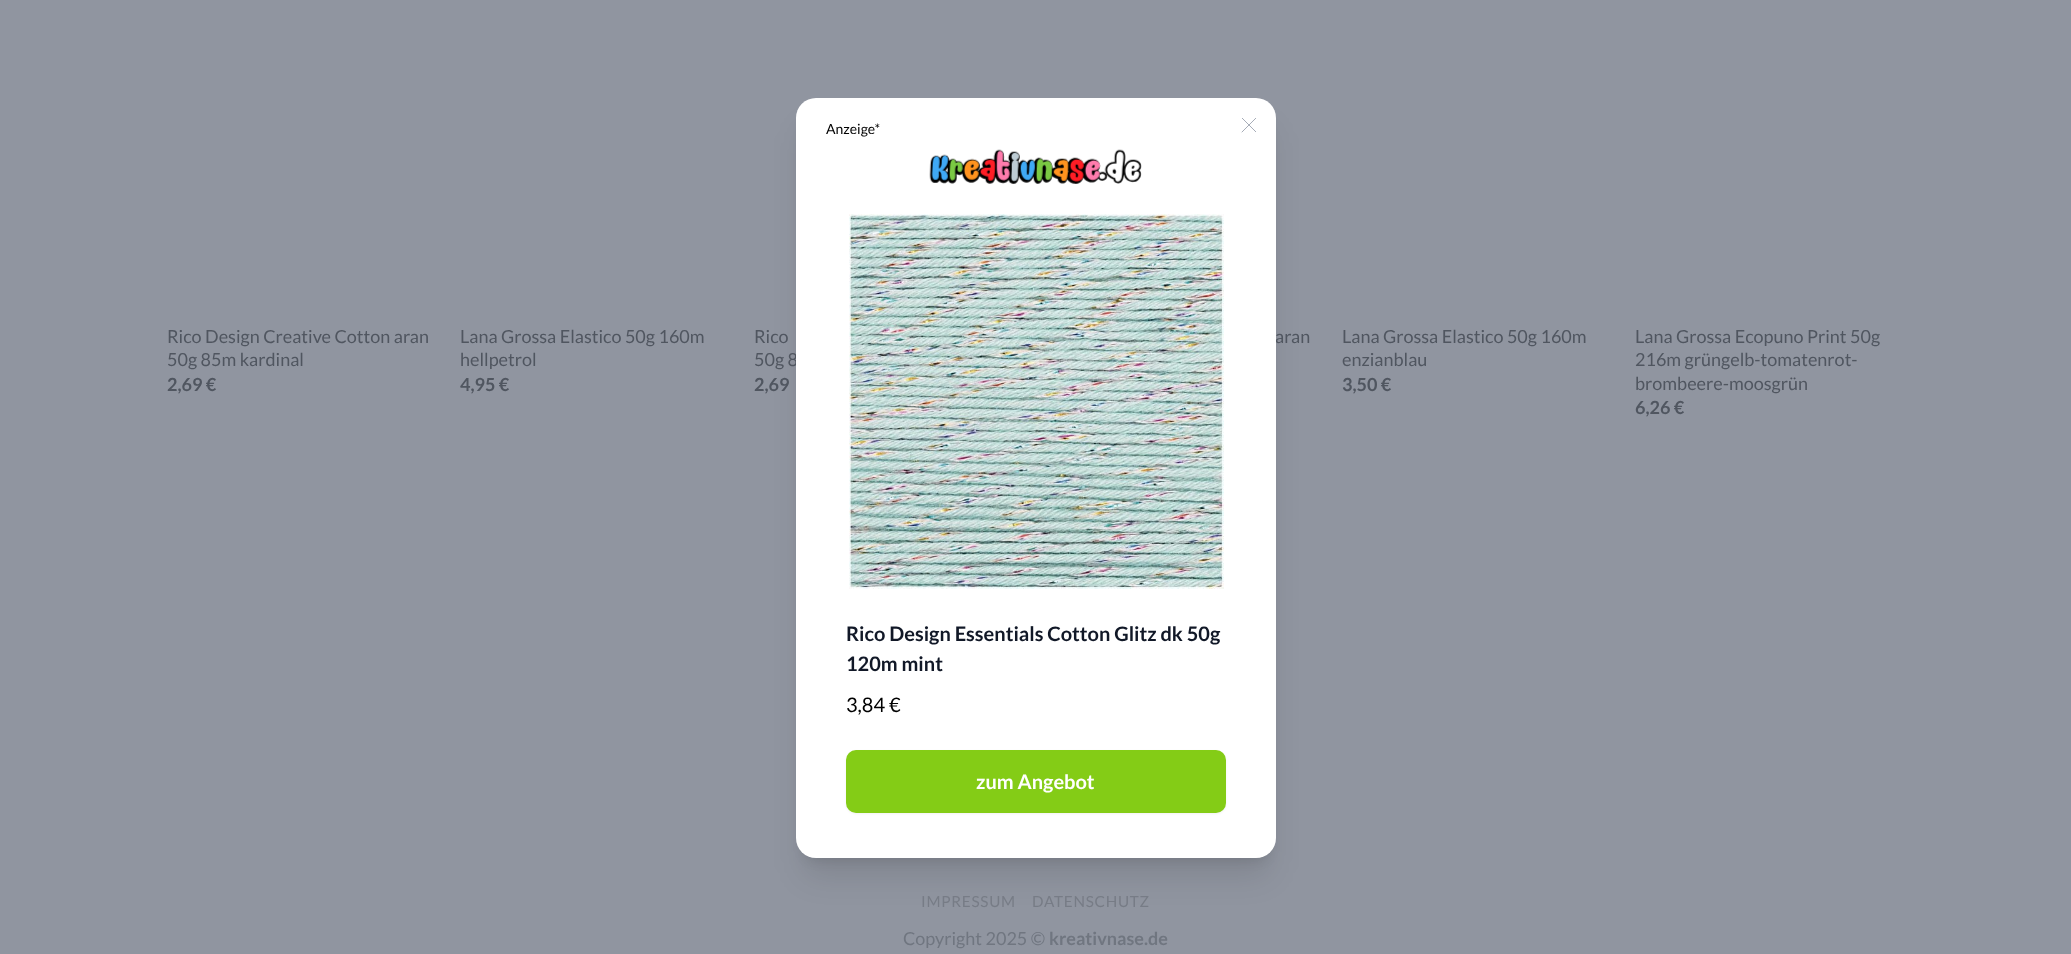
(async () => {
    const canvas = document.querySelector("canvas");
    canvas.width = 2071;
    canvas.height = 954;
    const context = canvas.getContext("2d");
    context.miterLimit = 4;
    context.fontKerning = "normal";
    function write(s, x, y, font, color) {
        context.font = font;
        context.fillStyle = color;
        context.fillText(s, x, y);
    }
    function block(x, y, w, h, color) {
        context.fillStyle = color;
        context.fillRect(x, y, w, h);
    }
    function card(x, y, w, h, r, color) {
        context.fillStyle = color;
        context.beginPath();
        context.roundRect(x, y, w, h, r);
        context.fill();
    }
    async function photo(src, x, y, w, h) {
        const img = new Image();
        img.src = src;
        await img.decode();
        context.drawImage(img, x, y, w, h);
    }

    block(0, 0, 2071, 954, "rgb(144, 149, 160)");
    context.fillStyle = "rgba(0, 0, 0, 0.1)";
    context.filter = "blur(6px)";
    context.beginPath();
    context.roundRect(804, 115, 465, 745, 13);
    context.fill();
    context.filter = "none";
    context.filter = "blur(15.5px)";
    context.beginPath();
    context.roundRect(803, 129, 467, 747, 14);
    context.fill();
    context.filter = "none";
    write("50g 8", 754, 366, "18px Lato", "rgb(80, 86, 96)");
    write("aran", 1275, 343, "18px Lato", "rgb(80, 86, 96)");
    card(796, 98, 480, 760, 20, "rgb(255, 255, 255)");
    write("Anzeige*", 826, 134, "14px Lato", "rgb(0, 0, 0)");
    context.save();
    context.beginPath();
    context.rect(1241, 118, 15, 15);
    context.clip();
    context.beginPath();
    context.moveTo(1242, 132);
    context.lineTo(1256, 118);
    context.moveTo(1242, 118);
    context.lineTo(1256, 132);
    context.strokeStyle = "rgb(156, 163, 175)";
    context.lineWidth = 0.9;
    context.lineCap = "round";
    context.lineJoin = "round";
    context.stroke();
    context.restore();
    await photo("media/1.png", 929, 149, 213, 35);
    await photo("media/2.png", 849, 214, 375, 375);
    write("Rico Design Essentials Cotton Glitz dk 50g", 846, 641, "bold 20px Lato", "rgb(17, 24, 39)");
    write("120m mint", 846, 671, "bold 20px Lato", "rgb(17, 24, 39)");
    write("3,84 €", 846, 712, "20px Lato", "rgb(0, 0, 0)");
    context.fillStyle = "rgba(0, 0, 0, 0.05)";
    context.filter = "blur(1px)";
    context.beginPath();
    context.roundRect(846, 751, 380, 63, 10);
    context.fill();
    context.filter = "none";
    card(846, 750, 380, 63, 10, "rgb(132, 204, 22)");
    write("zum Angebot", 976, 789, "bold 20px Lato", "rgb(255, 255, 255)");
    write("Rico Design Creative Cotton aran", 167, 343, "18px Lato", "rgb(80, 86, 96)");
    write("50g 85m kardinal", 167, 366, "18px Lato", "rgb(80, 86, 96)");
    write("2,69 €", 167, 391, "bold 18px Lato", "rgb(80, 86, 96)");
    write("Lana Grossa Elastico 50g 160m", 460, 343, "18px Lato", "rgb(80, 86, 96)");
    write("hellpetrol", 460, 366, "18px Lato", "rgb(80, 86, 96)");
    write("4,95 €", 460, 391, "bold 18px Lato", "rgb(80, 86, 96)");
    write("Rico", 754, 343, "18px Lato", "rgb(80, 86, 96)");
    write("2,69", 754, 391, "bold 18px Lato", "rgb(80, 86, 96)");
    write("Lana Grossa Elastico 50g 160m", 1342, 343, "18px Lato", "rgb(80, 86, 96)");
    write("enzianblau", 1342, 366, "18px Lato", "rgb(80, 86, 96)");
    write("3,50 €", 1342, 391, "bold 18px Lato", "rgb(80, 86, 96)");
    write("Lana Grossa Ecopuno Print 50g", 1635, 343, "18px Lato", "rgb(80, 86, 96)");
    write("216m grüngelb-tomatenrot-", 1635, 366, "18px Lato", "rgb(80, 86, 96)");
    write("brombeere-moosgrün", 1635, 390, "18px Lato", "rgb(80, 86, 96)");
    write("6,26 €", 1635, 414, "bold 18px Lato", "rgb(80, 86, 96)");
    context.letterSpacing = "0.75px";
    write("IMPRESSUM", 921, 907, "15.25px Lato", "rgb(119, 124, 134)");
    write("DATENSCHUTZ", 1032, 907, "15.25px Lato", "rgb(119, 124, 134)");
    context.letterSpacing = "0px";
    write("Copyright 2025 ©", 903, 945, "18px Lato", "rgb(112, 118, 128)");
    write("kreativnase.de", 1049, 945, "bold 18px Lato", "rgb(112, 118, 128)");
})();
